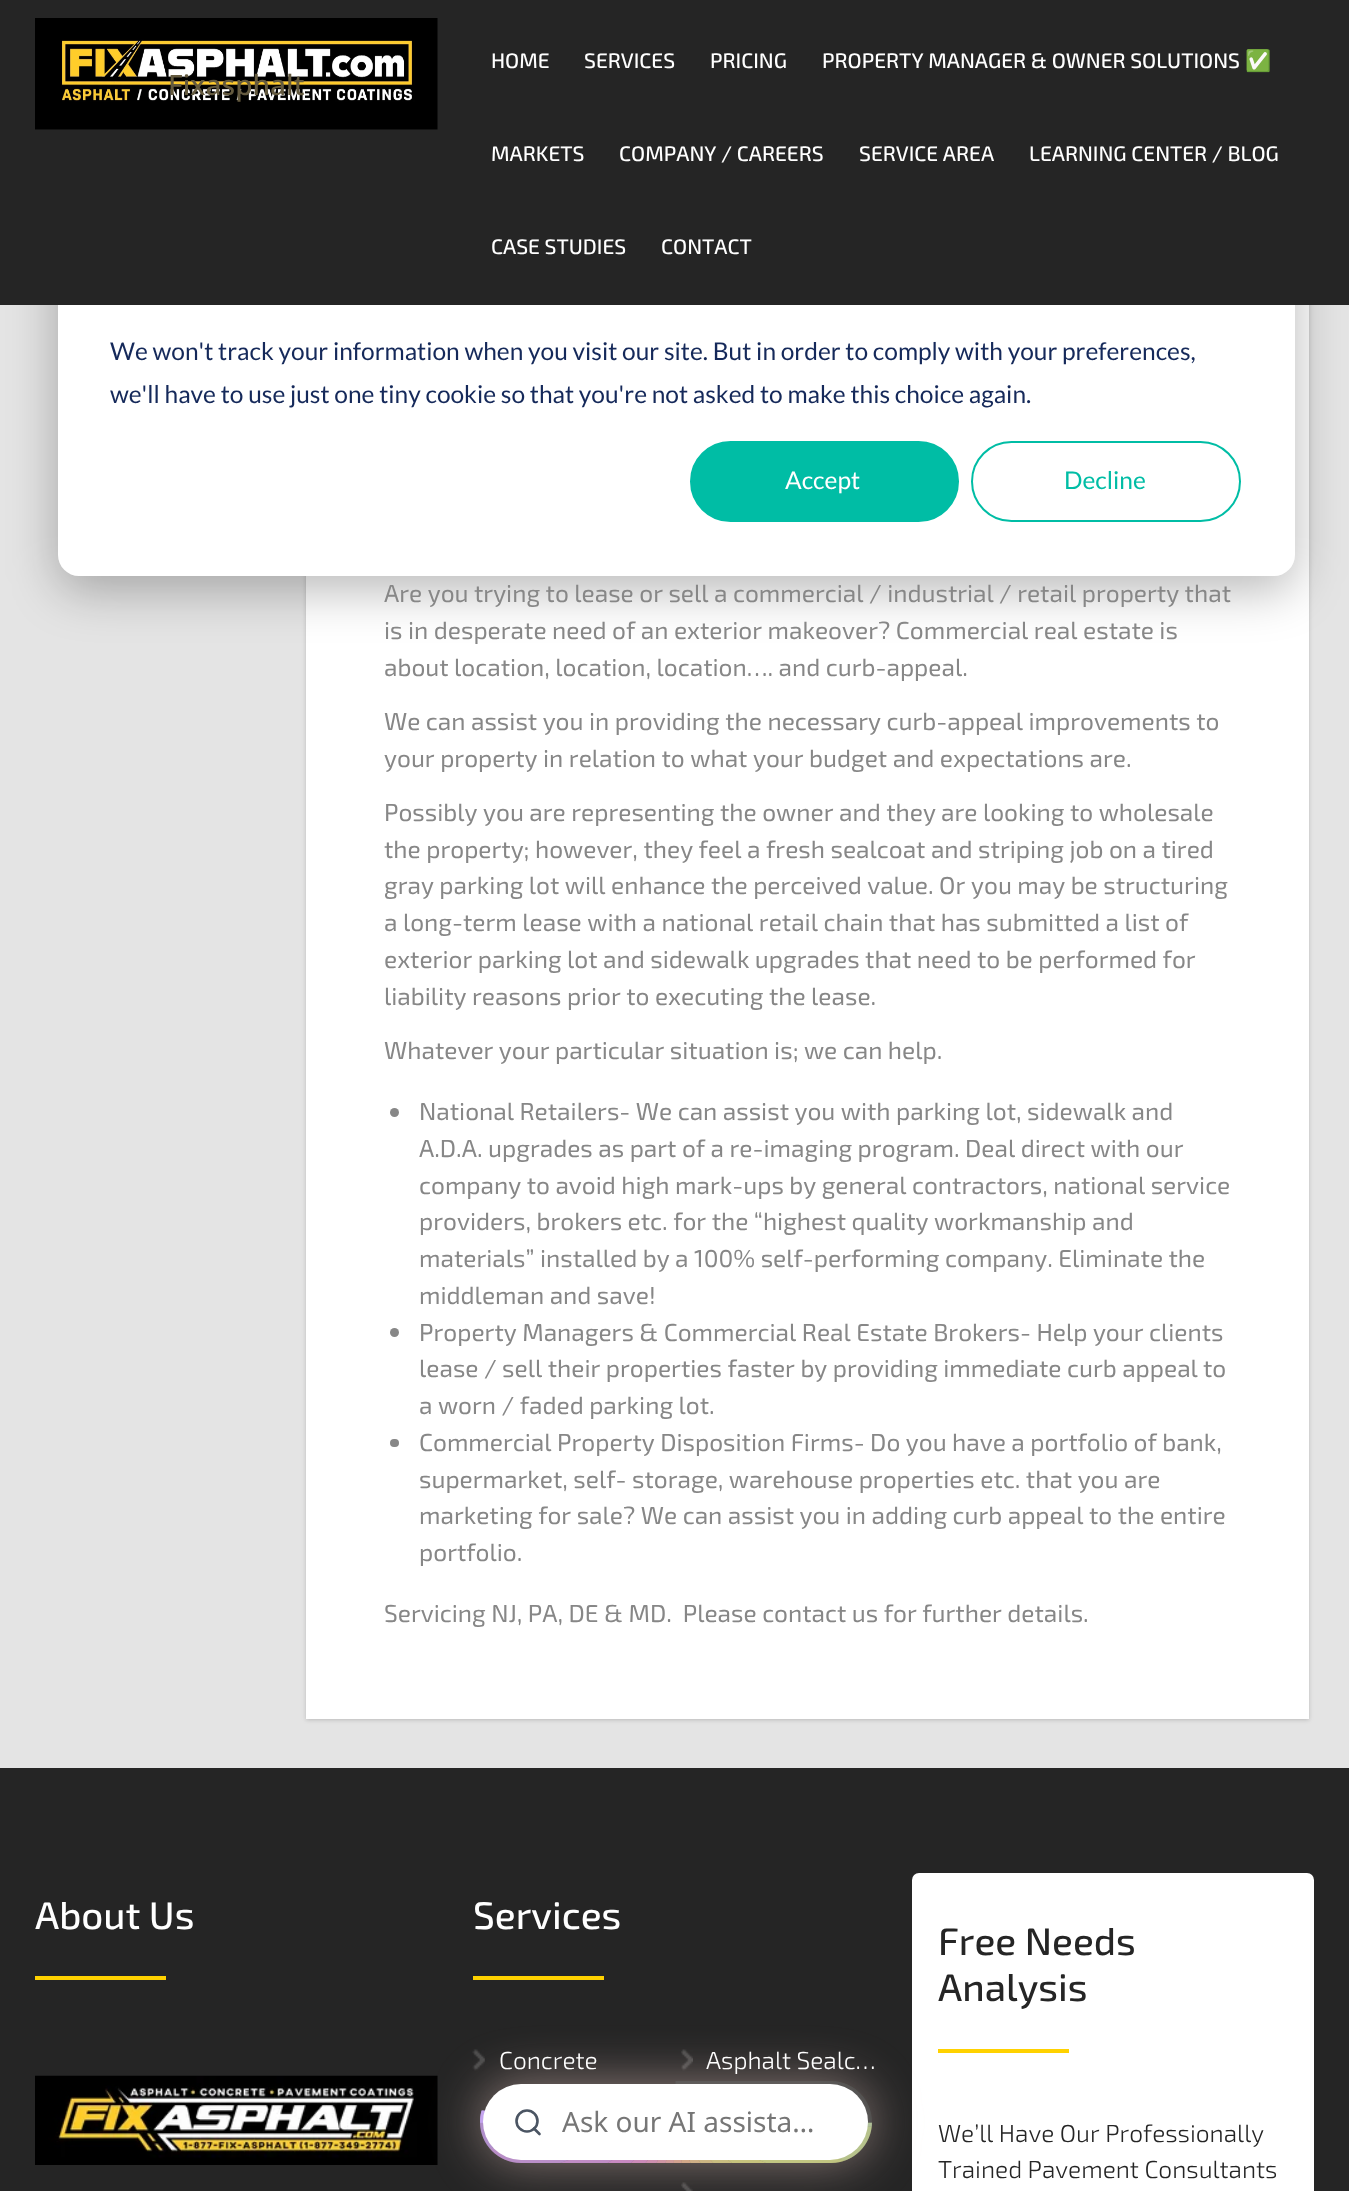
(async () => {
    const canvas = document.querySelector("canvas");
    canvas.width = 1349;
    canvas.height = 2191;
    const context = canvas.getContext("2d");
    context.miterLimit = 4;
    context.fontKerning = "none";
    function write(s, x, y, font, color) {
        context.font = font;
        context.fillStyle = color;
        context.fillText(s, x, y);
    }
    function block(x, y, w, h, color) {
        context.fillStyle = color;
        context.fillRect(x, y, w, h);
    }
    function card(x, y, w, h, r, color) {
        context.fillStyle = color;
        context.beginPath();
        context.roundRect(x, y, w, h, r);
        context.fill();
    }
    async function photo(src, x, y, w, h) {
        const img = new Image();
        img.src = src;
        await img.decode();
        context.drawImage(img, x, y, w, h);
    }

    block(0, 0, 1349, 2191, "rgb(228, 228, 228)");
    context.fillStyle = "rgba(0, 0, 0, 0.18)";
    context.filter = "blur(2px)";
    context.beginPath();
    context.rect(306, -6, 1003, 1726);
    context.fill();
    context.filter = "none";
    block(306, 305, 1003, 1414, "rgb(255, 255, 255)");
    context.fillStyle = "rgba(0, 0, 0, 0.28)";
    context.filter = "blur(24.5px)";
    context.beginPath();
    context.roundRect(58, 70, 1237, 520, 21);
    context.fill();
    context.filter = "none";
    card(58, 56, 1237, 520, 21, "rgb(255, 255, 255)");
    block(0, 0, 1349, 305, "rgb(37, 37, 37)");
    await photo("media/1.png", 35, 18, 403, 112);
    write("HOME", 491, 68, "500 21px 'Exo 2'", "rgb(255, 255, 255)");
    write("SERVICES", 584, 68, "500 21px 'Exo 2'", "rgb(255, 255, 255)");
    write("PRICING", 710, 68, "500 21px 'Exo 2'", "rgb(255, 255, 255)");
    write("PROPERTY MANAGER & OWNER SOLUTIONS", 822, 68, "500 21px 'Exo 2'", "rgb(255, 255, 255)");
    write("✅", 1245, 68, "21px Noto Color Emoji", "rgb(255, 255, 255)");
    write("MARKETS", 491, 161, "500 21px 'Exo 2'", "rgb(255, 255, 255)");
    write("COMPANY / CAREERS", 619, 161, "500 21px 'Exo 2'", "rgb(255, 255, 255)");
    write("SERVICE AREA", 859, 161, "500 21px 'Exo 2'", "rgb(255, 255, 255)");
    write("LEARNING CENTER / BLOG", 1029, 161, "500 21px 'Exo 2'", "rgb(255, 255, 255)");
    write("CASE STUDIES", 491, 254, "500 21px 'Exo 2'", "rgb(255, 255, 255)");
    write("CONTACT", 661, 254, "500 21px 'Exo 2'", "rgb(255, 255, 255)");
    write("Fixasphalt", 168, 95, "500 28px Noto Sans", "rgb(100, 90, 63)");
    block(0, 1768, 1349, 423, "rgb(37, 37, 37)");
    await photo("media/4.png", 35, 2075, 403, 90);
    await photo("media/5.png", 472, 2049, 13, 22);
    await photo("media/6.png", 681, 2049, 12, 22);
    await photo("media/7.png", 681, 2182, 12, 9);
    card(912, 1873, 402, 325, 7, "rgb(255, 255, 255)");
    block(938, 2049, 131, 4, "rgb(255, 210, 0)");
    context.fillStyle = "rgba(230, 197, 191, 0.5)";
    context.filter = "blur(24.5px)";
    context.beginPath();
    context.roundRect(480, 2081, 392, 82, 41);
    context.fill();
    context.filter = "none";
    await photo("media/2.png", 480, 2081, 392, 82);
    await photo("media/3.png", 480, 2081, 392, 82);
    card(483, 2084, 385, 76, 38, "rgb(255, 255, 255)");
    context.beginPath();
    context.arc(527, 2121, 10.5, 0, Math.PI * 2);
    context.strokeStyle = "rgb(75, 85, 99)";
    context.lineWidth = 2.6;
    context.stroke();
    context.beginPath();
    context.moveTo(539.5, 2134);
    context.lineTo(534, 2128.5);
    context.lineCap = "round";
    context.lineJoin = "round";
    context.stroke();
    write("Ask our AI assista…", 562, 2132, "28px Noto Sans", "rgb(118, 118, 118)");
    write("We won't track your information when you visit our site. But in order to comply with your preferences,", 110, 360, "24.5px Lato", "rgb(21, 41, 90)");
    write("we'll have to use just one tiny cookie so that you're not asked to make this choice again.", 110, 403, "24.5px Lato", "rgb(21, 41, 90)");
    context.fillStyle = "rgb(0, 189, 165)";
    context.beginPath();
    context.roundRect(691, 442, 267, 79, 39.5);
    context.fill();
    context.strokeStyle = "rgb(0, 189, 165)";
    context.lineWidth = 2;
    context.lineJoin = "miter";
    context.stroke();
    write("Accept", 785, 489, "24.5px Lato", "rgb(255, 255, 255)");
    context.beginPath();
    context.roundRect(972, 442, 268, 79, 39.5);
    context.stroke();
    write("Decline", 1064, 489, "24.5px Lato", "rgb(0, 189, 165)");
    write("Are you trying to lease or sell a commercial / industrial", 384, 602, "24.5px 'Exo 2'", "rgb(135, 135, 135)");
    write("/ retail property that", 999, 602, "24.5px 'Exo 2'", "rgb(135, 135, 135)");
    write("is in desperate need of an exterior makeover? Commercial real estate is", 384, 639, "24.5px 'Exo 2'", "rgb(135, 135, 135)");
    write("about location, location, location…. and curb-appeal.", 384, 676, "24.5px 'Exo 2'", "rgb(135, 135, 135)");
    write("We can assist you in providing the necessary curb-appeal improvements to", 384, 730, "24.5px 'Exo 2'", "rgb(135, 135, 135)");
    write("your property in relation to what your budget and expectations are.", 384, 767, "24.5px 'Exo 2'", "rgb(135, 135, 135)");
    write("Possibly you are representing the owner and they", 384, 821, "24.5px 'Exo 2'", "rgb(135, 135, 135)");
    write("are looking to wholesale", 941, 821, "24.5px 'Exo 2'", "rgb(135, 135, 135)");
    write("the property; however, they feel a", 384, 858, "24.5px 'Exo 2'", "rgb(135, 135, 135)");
    write("fresh sealcoat and striping job on a tired", 766, 858, "24.5px 'Exo 2'", "rgb(135, 135, 135)");
    write("gray parking lot will enhance the perceived value. Or", 384, 894, "24.5px 'Exo 2'", "rgb(135, 135, 135)");
    write("you may be structuring", 971, 894, "24.5px 'Exo 2'", "rgb(135, 135, 135)");
    write("a long-term lease with a national retail chain that has submitted a list of", 384, 931, "24.5px 'Exo 2'", "rgb(135, 135, 135)");
    write("exterior parking lot and sidewalk upgrades that need to be performed for", 384, 968, "24.5px 'Exo 2'", "rgb(135, 135, 135)");
    write("liability reasons prior to executing the lease.", 384, 1005, "24.5px 'Exo 2'", "rgb(135, 135, 135)");
    write("Whatever your particular situation is; we can help.", 384, 1059, "24.5px 'Exo 2'", "rgb(135, 135, 135)");
    context.beginPath();
    context.arc(394.5, 1112.5, 4.5, 0, Math.PI * 2);
    context.fill();
    write("National Retailers- We can assist you with parking lot, sidewalk and", 419, 1120, "24.5px 'Exo 2'", "rgb(135, 135, 135)");
    write("A.D.A. upgrades as part of a re-imaging program. Deal direct with our", 419, 1157, "24.5px 'Exo 2'", "rgb(135, 135, 135)");
    write("company to avoid high mark-ups by general contractors, national service", 419, 1194, "24.5px 'Exo 2'", "rgb(135, 135, 135)");
    write("providers, brokers etc. for the “highest quality workmanship and", 419, 1230, "24.5px 'Exo 2'", "rgb(135, 135, 135)");
    write("materials” installed by a 100% self-performing company. Eliminate the", 419, 1267, "24.5px 'Exo 2'", "rgb(135, 135, 135)");
    write("middleman and save!", 419, 1304, "24.5px 'Exo 2'", "rgb(135, 135, 135)");
    context.beginPath();
    context.arc(394.5, 1332.5, 4.5, 0, Math.PI * 2);
    context.fill();
    write("Property Managers & Commercial Real Estate Brokers- Help your", 419, 1341, "24.5px 'Exo 2'", "rgb(135, 135, 135)");
    write("clients", 1149, 1341, "24.5px 'Exo 2'", "rgb(135, 135, 135)");
    write("lease / sell their properties faster by providing immediate curb appeal", 419, 1377, "24.5px 'Exo 2'", "rgb(135, 135, 135)");
    write("to", 1203, 1377, "24.5px 'Exo 2'", "rgb(135, 135, 135)");
    write("a worn / faded parking lot.", 419, 1414, "24.5px 'Exo 2'", "rgb(135, 135, 135)");
    card(390, 1439, 9, 8, 4, "rgb(135, 135, 135)");
    write("Commercial Property Disposition Firms- Do you have a portfolio of bank,", 419, 1451, "24.5px 'Exo 2'", "rgb(135, 135, 135)");
    write("supermarket, self- storage, warehouse properties etc. that you are", 419, 1488, "24.5px 'Exo 2'", "rgb(135, 135, 135)");
    write("marketing for sale? We can assist you in adding curb appeal", 419, 1524, "24.5px 'Exo 2'", "rgb(135, 135, 135)");
    write("to the entire", 1089, 1524, "24.5px 'Exo 2'", "rgb(135, 135, 135)");
    write("portfolio.", 419, 1561, "24.5px 'Exo 2'", "rgb(135, 135, 135)");
    write("Servicing NJ, PA, DE & MD.  Please contact us for further details.", 384, 1622, "24.5px 'Exo 2'", "rgb(135, 135, 135)");
    write("About Us", 35, 1929, "500 38.5px 'Exo 2'", "rgb(255, 255, 255)");
    block(35, 1976, 131, 4, "rgb(255, 210, 0)");
    write("Services", 473, 1929, "500 38.5px 'Exo 2'", "rgb(255, 255, 255)");
    block(473, 1976, 131, 4, "rgb(255, 210, 0)");
    write("Concrete", 499, 2069, "300 24.5px 'Exo 2'", "rgb(255, 255, 255)");
    write("Asphalt Sealc…", 706, 2069, "300 24.5px 'Exo 2'", "rgb(255, 255, 255)");
    write("Free Needs", 938, 1955, "500 38.5px 'Exo 2'", "rgb(37, 37, 37)");
    write("Analysis", 938, 2001, "500 38.5px 'Exo 2'", "rgb(37, 37, 37)");
    write("We’ll Have Our Professionally", 938, 2142, "300 24.5px 'Exo 2'", "rgb(37, 37, 37)");
    write("Trained Pavement Consultants", 938, 2178, "300 24.5px 'Exo 2'", "rgb(37, 37, 37)");
})();
